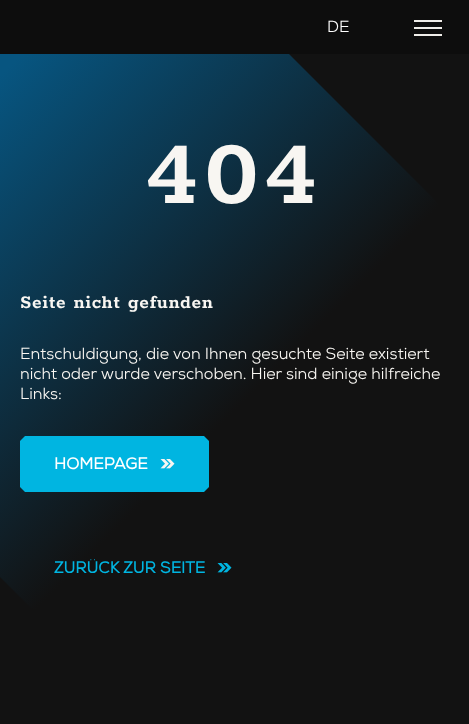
(async () => {
    const canvas = document.querySelector("canvas");
    canvas.width = 469;
    canvas.height = 724;
    const context = canvas.getContext("2d");
    context.miterLimit = 4;
    context.fontKerning = "normal";
    function write(s, x, y, font, color) {
        context.font = font;
        context.fillStyle = color;
        context.fillText(s, x, y);
    }
    function block(x, y, w, h, color) {
        context.fillStyle = color;
        context.fillRect(x, y, w, h);
    }
    async function photo(src, x, y, w, h) {
        const img = new Image();
        img.src = src;
        await img.decode();
        context.drawImage(img, x, y, w, h);
    }
    let gradient;

    block(0, 0, 469, 724, "rgb(18, 18, 18)");
    gradient = context.createLinearGradient(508, 585, -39, 39);
    gradient.addColorStop(0.41, "rgb(18, 18, 18)");
    gradient.addColorStop(0.93, "rgb(7, 85, 128)");
    context.fillStyle = gradient;
    context.fillRect(0, 54, 469, 570);
    context.fillStyle = "rgb(18, 18, 18)";
    context.beginPath();
    context.moveTo(235, 0);
    context.lineTo(469, 234);
    context.lineTo(469, 0);
    context.closePath();
    context.fill();
    block(0, 0, 469, 54, "rgb(13, 13, 13)");
    write("DE", 327, 32, "16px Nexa", "rgb(255, 255, 255)");
    block(414, 20, 28, 2, "rgb(239, 237, 233)");
    block(414, 27, 28, 2, "rgb(239, 237, 233)");
    block(414, 34, 28, 2, "rgb(239, 237, 233)");
    context.letterSpacing = "5px";
    write("404", 146, 203, "bold 100px Rokkitt", "rgb(248, 246, 242)");
    context.letterSpacing = "1px";
    write("Seite nicht gefunden", 20, 308, "bold 20px Rokkitt", "rgb(248, 246, 242)");
    context.letterSpacing = "0px";
    write("Entschuldigung, die von Ihnen gesuchte Seite existiert", 20, 359, "16px Nexa", "rgb(248, 246, 242)");
    write("nicht oder wurde verschoben. Hier sind einige hilfreiche", 20, 379, "16px Nexa", "rgb(248, 246, 242)");
    write("Links:", 20, 399, "16px Nexa", "rgb(248, 246, 242)");
    context.fillStyle = "rgb(0, 181, 225)";
    context.beginPath();
    context.moveTo(20, 441);
    context.lineTo(20, 487);
    context.lineTo(25, 492);
    context.lineTo(204, 492);
    context.lineTo(209, 487);
    context.lineTo(209, 441);
    context.lineTo(204, 436);
    context.lineTo(25, 436);
    context.closePath();
    context.fill();
    write("HOMEPAGE", 54, 469, "bold 16px Nexa", "rgb(255, 255, 255)");
    await photo("media/1.png", 160, 459, 15, 10);
    write("ZURÜCK ZUR SEITE", 54, 573, "bold 16px Nexa", "rgb(0, 181, 225)");
    await photo("media/2.png", 217, 563, 15, 10);
    context.fillStyle = "rgb(18, 18, 18)";
    context.beginPath();
    context.moveTo(0, 577);
    context.lineTo(0, 624);
    context.lineTo(47, 624);
    context.closePath();
    context.fill();
})();
